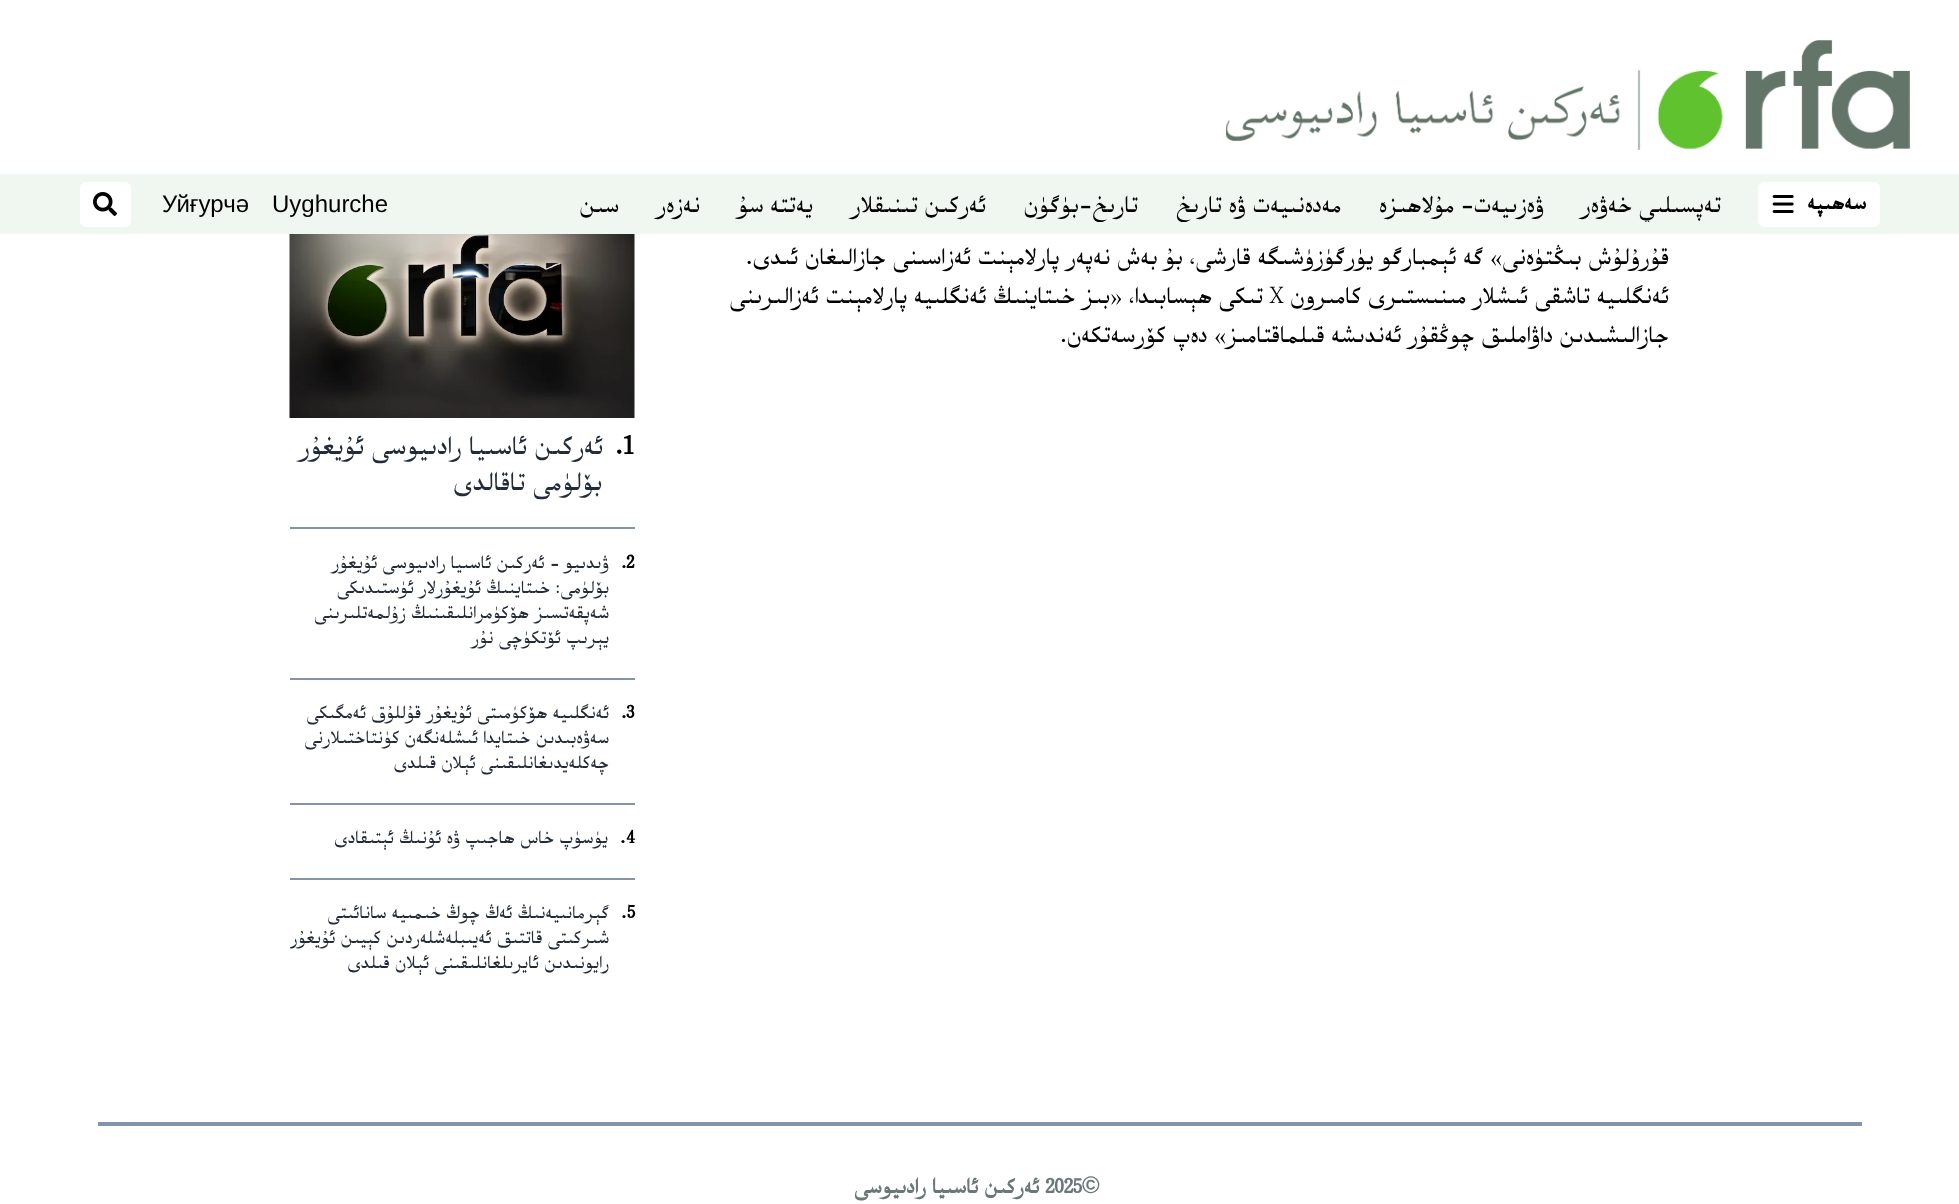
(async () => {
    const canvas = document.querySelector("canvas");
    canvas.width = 1959;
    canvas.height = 1204;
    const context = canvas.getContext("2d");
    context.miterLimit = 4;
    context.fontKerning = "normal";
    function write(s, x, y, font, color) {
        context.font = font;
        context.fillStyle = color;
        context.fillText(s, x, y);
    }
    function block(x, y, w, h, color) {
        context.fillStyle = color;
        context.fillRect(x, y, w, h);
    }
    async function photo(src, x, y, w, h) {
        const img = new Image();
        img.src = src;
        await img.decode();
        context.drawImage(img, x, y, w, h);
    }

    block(0, 0, 1959, 1204, "rgb(255, 255, 255)");
    await photo("media/1.png", 1226, 40, 684, 110);
    block(0, 174, 1959, 60, "rgb(240, 246, 240)");
    context.fillStyle = "rgb(255, 255, 255)";
    context.beginPath();
    context.roundRect(1759, 183, 120, 43, 5);
    context.fill();
    context.strokeStyle = "rgb(255, 255, 255)";
    context.lineWidth = 2;
    context.stroke();
    context.direction = "rtl";
    write("سەھىپە", 1866, 209, "bold 24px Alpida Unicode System", "rgb(0, 0, 0)");
    await photo("media/2.png", 1772, 195, 22, 18);
    context.save();
    context.beginPath();
    context.rect(438, 186, 1284, 36);
    context.clip();
    write("تەپسىلىي خەۋەر", 1721, 212, "27px Alpida Unicode System", "rgb(0, 0, 0)");
    context.restore();
    write("ۋەزىيەت- مۇلاھىزە", 1544, 212, "27px Alpida Unicode System", "rgb(0, 0, 0)");
    context.save();
    context.beginPath();
    context.rect(438, 186, 1284, 36);
    context.clip();
    write("مەدەنىيەت ۋە تارىخ", 1341, 212, "27px Alpida Unicode System", "rgb(0, 0, 0)");
    write("تارىخ-بۈگۈن", 1138, 212, "27px Alpida Unicode System", "rgb(0, 0, 0)");
    context.restore();
    write("ئەركىن تىنىقلار", 986, 212, "27px Alpida Unicode System", "rgb(0, 0, 0)");
    write("يەتتە سۇ", 813, 212, "27px Alpida Unicode System", "rgb(0, 0, 0)");
    write("نەزەر", 700, 212, "27px Alpida Unicode System", "rgb(0, 0, 0)");
    write("سىن", 619, 212, "27px Alpida Unicode System", "rgb(0, 0, 0)");
    context.direction = "ltr";
    write("Uyghurche", 272, 212, "24px Liberation Sans", "rgb(0, 0, 0)");
    write("Уйғурчә", 162, 212, "24px Liberation Sans", "rgb(0, 0, 0)");
    context.fillStyle = "rgb(255, 255, 255)";
    context.beginPath();
    context.roundRect(81, 183, 49, 43, 5);
    context.fill();
    context.stroke();
    await photo("media/3.png", 93, 192, 24, 24);
    context.direction = "rtl";
    write("قۇرۇلۇش بىڭتۈەنى» گە ئېمبارگو يۈرگۈزۈشىگە قارشى، بۇ بەش نەپەر پارلامېنت ئەزاسىنى جازالىغان ئىدى.", 1669, 264, "27px Alpida Unicode System", "rgb(0, 0, 0)");
    write("ئەنگلىيە تاشقى ئىشلار مىنىستىرى كامىرون", 1669, 303, "27px Alpida Unicode System", "rgb(0, 0, 0)");
    context.direction = "ltr";
    write("X", 1269, 303, "27px Alpida Unicode System", "rgb(0, 0, 0)");
    context.direction = "rtl";
    write("تىكى ھېسابىدا، «بىز خىتاينىڭ ئەنگلىيە پارلامېنت ئەزالىرىنى", 1263, 303, "27px Alpida Unicode System", "rgb(0, 0, 0)");
    write("جازالىشىدىن داۋاملىق چوڭقۇر ئەندىشە قىلماقتامىز» دەپ كۆرسەتكەن.", 1669, 342, "27px Alpida Unicode System", "rgb(0, 0, 0)");
    await photo("media/4.png", 289, 234, 346, 184);
    context.direction = "ltr";
    write("1", 622, 454, "bold 30px Alpida Unicode System", "rgb(0, 0, 0)");
    write(".", 615, 454, "bold 30px Alpida Unicode System", "rgb(0, 0, 0)");
    context.direction = "rtl";
    write("ئەركىن ئاسىيا رادىيوسى ئۇيغۇر", 603, 454, "30px Alpida Unicode System", "rgb(35, 43, 57)");
    write("بۆلۈمى تاقالدى", 602, 490, "30px Alpida Unicode System", "rgb(35, 43, 57)");
    block(290, 527, 345, 2, "rgb(133, 147, 170)");
    context.direction = "ltr";
    write("2", 626, 568, "bold 21px Alpida Unicode System", "rgb(0, 0, 0)");
    write(".", 621, 568, "bold 21px Alpida Unicode System", "rgb(0, 0, 0)");
    context.direction = "rtl";
    write("ۋىدىيو – ئەركىن ئاسىيا رادىيوسى ئۇيغۇر", 609, 568, "21px Alpida Unicode System", "rgb(35, 43, 57)");
    write("بۆلۈمى: خىتاينىڭ ئۇيغۇرلار ئۈستىدىكى", 609, 593, "21px Alpida Unicode System", "rgb(35, 43, 57)");
    write("شەپقەتسىز ھۆكۈمرانلىقىنىڭ زۇلمەتلىرىنى", 609, 618, "21px Alpida Unicode System", "rgb(35, 43, 57)");
    write("يېرىپ ئۆتكۈچى نۇر", 609, 643, "21px Alpida Unicode System", "rgb(35, 43, 57)");
    block(290, 678, 345, 2, "rgb(133, 147, 170)");
    context.direction = "ltr";
    write("3", 626, 718, "bold 21px Alpida Unicode System", "rgb(0, 0, 0)");
    write(".", 621, 718, "bold 21px Alpida Unicode System", "rgb(0, 0, 0)");
    context.direction = "rtl";
    write("ئەنگلىيە ھۆكۈمىتى ئۇيغۇر قۇللۇق ئەمگىكى", 609, 718, "21px Alpida Unicode System", "rgb(35, 43, 57)");
    write("سەۋەبىدىن خىتايدا ئىشلەنگەن كۈنتاختىلارنى", 609, 743, "21px Alpida Unicode System", "rgb(35, 43, 57)");
    write("چەكلەيدىغانلىقىنى ئېلان قىلدى", 609, 768, "21px Alpida Unicode System", "rgb(35, 43, 57)");
    block(290, 803, 345, 2, "rgb(133, 147, 170)");
    context.direction = "ltr";
    write("4", 626, 843, "bold 21px Alpida Unicode System", "rgb(0, 0, 0)");
    write(".", 620, 843, "bold 21px Alpida Unicode System", "rgb(0, 0, 0)");
    context.direction = "rtl";
    write("يۈسۈپ خاس ھاجىپ ۋە ئۇنىڭ ئېتىقادى", 608, 843, "21px Alpida Unicode System", "rgb(35, 43, 57)");
    block(290, 878, 345, 2, "rgb(133, 147, 170)");
    context.direction = "ltr";
    write("5", 627, 918, "bold 21px Alpida Unicode System", "rgb(0, 0, 0)");
    write(".", 621, 918, "bold 21px Alpida Unicode System", "rgb(0, 0, 0)");
    context.direction = "rtl";
    write("گېرمانىيەنىڭ ئەڭ چوڭ خىمىيە سانائىتى", 609, 918, "21px Alpida Unicode System", "rgb(35, 43, 57)");
    context.save();
    context.beginPath();
    context.rect(290, 903, 319, 75);
    context.clip();
    write("شىركىتى قاتتىق ئەيىبلەشلەردىن كېيىن ئۇيغۇر", 609, 943, "21px Alpida Unicode System", "rgb(35, 43, 57)");
    context.restore();
    write("رايونىدىن ئايرىلغانلىقىنى ئېلان قىلدى", 609, 968, "21px Alpida Unicode System", "rgb(35, 43, 57)");
    block(98, 1122, 1764, 4, "rgb(133, 147, 170)");
    context.direction = "ltr";
    write("©", 1082, 1193, "bold 24px Liberation Sans", "rgb(108, 119, 120)");
    write("2025", 1045, 1193, "bold 24px Alpida Unicode System", "rgb(108, 119, 120)");
    context.direction = "rtl";
    write("ئەركىن ئاسىيا رادىيوسى", 1039, 1193, "bold 24px Alpida Unicode System", "rgb(108, 119, 120)");
})();
